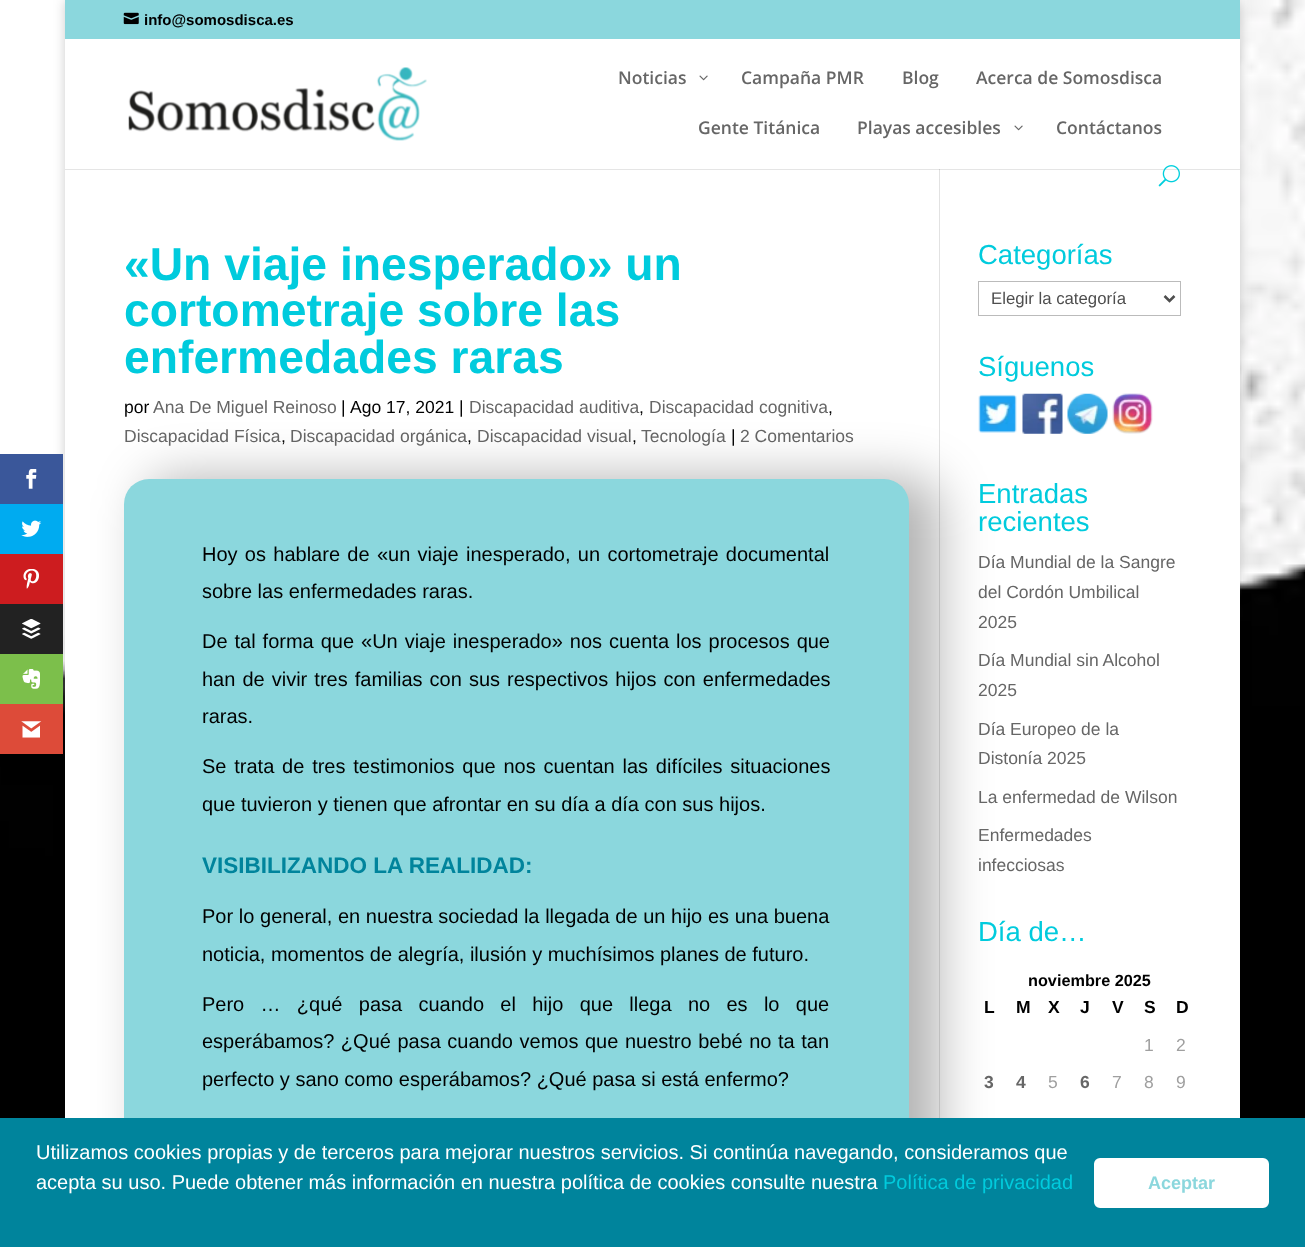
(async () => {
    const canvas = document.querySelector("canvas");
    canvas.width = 1305;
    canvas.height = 1247;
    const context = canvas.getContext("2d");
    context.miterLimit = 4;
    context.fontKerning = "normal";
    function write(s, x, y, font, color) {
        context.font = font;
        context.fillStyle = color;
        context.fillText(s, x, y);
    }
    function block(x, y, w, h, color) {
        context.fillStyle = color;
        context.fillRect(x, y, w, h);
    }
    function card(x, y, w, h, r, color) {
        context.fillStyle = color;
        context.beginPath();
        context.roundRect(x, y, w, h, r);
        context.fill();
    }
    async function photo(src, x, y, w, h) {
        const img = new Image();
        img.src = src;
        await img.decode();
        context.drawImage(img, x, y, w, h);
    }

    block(0, 0, 1305, 1247, "rgb(255, 255, 255)");
    await photo("media/1.png", 0, 0, 1305, 1118);
    context.fillStyle = "rgba(0, 0, 0, 0.2)";
    context.filter = "blur(6px)";
    context.beginPath();
    context.rect(65, 0, 1175, 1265);
    context.fill();
    context.filter = "none";
    block(0, 454, 63, 50, "rgb(58, 87, 154)");
    await photo("media/2.png", 26, 469, 11, 20);
    block(0, 504, 63, 50, "rgb(0, 171, 240)");
    await photo("media/3.png", 21, 520, 21, 17);
    block(0, 554, 63, 50, "rgb(205, 28, 31)");
    await photo("media/4.png", 23, 569, 16, 20);
    block(0, 604, 63, 50, "rgb(34, 34, 34)");
    await photo("media/5.png", 22, 619, 19, 20);
    block(0, 654, 63, 50, "rgb(124, 191, 75)");
    await photo("media/6.png", 22, 669, 18, 20);
    block(0, 704, 63, 50, "rgb(221, 75, 57)");
    await photo("media/7.png", 21, 721, 21, 17);
    block(65, 0, 1175, 39, "rgb(139, 215, 221)");
    await photo("media/8.png", 123, 12, 16, 13);
    write("info@somosdisca.es", 144, 25, "bold 15px Liberation Sans", "rgb(0, 0, 0)");
    block(65, 39, 1175, 1079, "rgb(255, 255, 255)");
    block(939, 169, 1, 949, "rgb(226, 226, 226)");
    block(65, 169, 1175, 1, "rgba(0, 0, 0, 0.1)");
    await photo("media/9.png", 128, 67, 299, 74);
    write("Noticias", 618, 84, "600 17.5px Open Sans", "rgb(102, 102, 102)");
    await photo("media/10.png", 699, 75, 9, 6);
    write("Campaña PMR", 741, 84, "600 17.5px Open Sans", "rgb(102, 102, 102)");
    write("Blog", 902, 84, "600 17.5px Open Sans", "rgb(102, 102, 102)");
    write("Acerca de Somosdisca", 976, 84, "600 17.5px Open Sans", "rgb(102, 102, 102)");
    write("Gente Titánica", 698, 134, "600 17.5px Open Sans", "rgb(102, 102, 102)");
    write("Playas accesibles", 857, 134, "600 17.5px Open Sans", "rgb(102, 102, 102)");
    await photo("media/10.png", 1014, 125, 9, 6);
    write("Contáctanos", 1056, 134, "600 17.5px Open Sans", "rgb(102, 102, 102)");
    await photo("media/11.png", 1158, 165, 22, 22);
    write("«Un viaje inesperado» un", 124, 280, "bold 46.25px Liberation Sans", "rgb(0, 203, 221)");
    write("cortometraje sobre las", 124, 326, "bold 46.25px Liberation Sans", "rgb(0, 203, 221)");
    write("enfermedades raras", 124, 373, "bold 46.25px Liberation Sans", "rgb(0, 203, 221)");
    write("por", 124, 413, "17.5px Liberation Sans", "rgb(0, 0, 0)");
    write("Ana De Miguel Reinoso", 153, 413, "17.5px Liberation Sans", "rgb(102, 102, 102)");
    write("|", 341, 413, "17.5px Liberation Sans", "rgb(0, 0, 0)");
    write("Ago 17, 2021 |", 350, 413, "17.5px Liberation Sans", "rgb(0, 0, 0)");
    write("Discapacidad auditiva", 469, 413, "17.5px Liberation Sans", "rgb(102, 102, 102)");
    write(",", 639, 413, "17.5px Liberation Sans", "rgb(0, 0, 0)");
    write("Discapacidad cognitiva", 649, 413, "17.5px Liberation Sans", "rgb(102, 102, 102)");
    write(",", 828, 413, "17.5px Liberation Sans", "rgb(0, 0, 0)");
    write("Discapacidad Física", 124, 442, "17.5px Liberation Sans", "rgb(102, 102, 102)");
    write(",", 281, 442, "17.5px Liberation Sans", "rgb(0, 0, 0)");
    write("Discapacidad orgánica", 290, 442, "17.5px Liberation Sans", "rgb(102, 102, 102)");
    write(",", 467, 442, "17.5px Liberation Sans", "rgb(0, 0, 0)");
    write("Discapacidad visual", 477, 442, "17.5px Liberation Sans", "rgb(102, 102, 102)");
    write(",", 632, 442, "17.5px Liberation Sans", "rgb(0, 0, 0)");
    write("Tecnología", 641, 442, "17.5px Liberation Sans", "rgb(102, 102, 102)");
    write("|", 731, 442, "17.5px Liberation Sans", "rgb(0, 0, 0)");
    write("2 Comentarios", 740, 442, "17.5px Liberation Sans", "rgb(102, 102, 102)");
    await photo("media/12.png", 978, 394, 39, 39);
    context.fillStyle = "rgba(0, 0, 0, 0.3)";
    context.filter = "blur(25.5px)";
    context.beginPath();
    context.roundRect(146, 478, 793, 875, 29);
    context.fill();
    context.filter = "none";
    card(124, 479, 785, 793, 25, "rgb(139, 215, 221)");
    context.wordSpacing = "1.75px";
    write("Hoy os hablare de «un viaje inesperado, un cortometraje documental", 202, 561, "20px Liberation Sans", "rgb(0, 0, 0)");
    context.wordSpacing = "0px";
    write("sobre las enfermedades raras.", 202, 598, "20px Liberation Sans", "rgb(0, 0, 0)");
    context.wordSpacing = "1.4px";
    write("De tal forma que «Un viaje inesperado» nos cuenta los procesos que", 202, 648, "20px Liberation Sans", "rgb(0, 0, 0)");
    context.wordSpacing = "1.5px";
    write("han de vivir tres familias con sus respectivos hijos con enfermedades", 202, 686, "20px Liberation Sans", "rgb(0, 0, 0)");
    context.wordSpacing = "0px";
    write("raras.", 202, 723, "20px Liberation Sans", "rgb(0, 0, 0)");
    context.wordSpacing = "2.25px";
    write("Se trata de tres testimonios que nos cuentan las difíciles situaciones", 202, 773, "20px Liberation Sans", "rgb(0, 0, 0)");
    context.wordSpacing = "0px";
    write("que tuvieron y tienen que afrontar en su día a día con sus hijos.", 202, 811, "20px Liberation Sans", "rgb(0, 0, 0)");
    write("VISIBILIZANDO LA REALIDAD:", 202, 873, "bold 22.5px Liberation Sans", "rgb(0, 132, 156)");
    context.wordSpacing = "0.1px";
    write("Por lo general, en nuestra sociedad la llegada de un hijo es una buena", 202, 923, "20px Liberation Sans", "rgb(0, 0, 0)");
    context.wordSpacing = "0px";
    write("noticia, momentos de alegría, ilusión y muchísimos planes de futuro.", 202, 961, "20px Liberation Sans", "rgb(0, 0, 0)");
    context.wordSpacing = "10.75px";
    write("Pero … ¿qué pasa cuando el hijo que llega no es lo que", 202, 1011, "20px Liberation Sans", "rgb(0, 0, 0)");
    context.wordSpacing = "1px";
    write("esperábamos? ¿Qué pasa cuando vemos que nuestro bebé no ta tan", 202, 1048, "20px Liberation Sans", "rgb(0, 0, 0)");
    context.wordSpacing = "0px";
    write("perfecto y sano como esperábamos? ¿Qué pasa si está enfermo?", 202, 1086, "20px Liberation Sans", "rgb(0, 0, 0)");
    write("Categorías", 978, 264, "27.5px Liberation Sans", "rgb(0, 203, 221)");
    context.strokeStyle = "rgb(187, 187, 187)";
    context.strokeRect(978.5, 281.5, 202, 34);
    context.beginPath();
    context.moveTo(1164.5, 296);
    context.lineTo(1169.5, 301);
    context.lineTo(1174.5, 296);
    context.strokeStyle = "rgb(78, 78, 78)";
    context.lineWidth = 2.5;
    context.stroke();
    write("Elegir la categoría", 991, 304, "16.75px Liberation Sans", "rgb(78, 78, 78)");
    write("Síguenos", 978, 376, "27.5px Liberation Sans", "rgb(0, 203, 221)");
    await photo("media/13.png", 1022, 393, 41, 41);
    await photo("media/14.png", 1067, 393, 41, 41);
    await photo("media/15.png", 1112, 393, 41, 41);
    write("Entradas", 978, 503, "27.5px Liberation Sans", "rgb(0, 203, 221)");
    write("recientes", 978, 531, "27.5px Liberation Sans", "rgb(0, 203, 221)");
    write("Día Mundial de la Sangre", 978, 568, "17.5px Liberation Sans", "rgb(102, 102, 102)");
    write("del Cordón Umbilical", 978, 598, "17.5px Liberation Sans", "rgb(102, 102, 102)");
    write("2025", 978, 628, "17.5px Liberation Sans", "rgb(102, 102, 102)");
    write("Día Mundial sin Alcohol", 978, 666, "17.5px Liberation Sans", "rgb(102, 102, 102)");
    write("2025", 978, 696, "17.5px Liberation Sans", "rgb(102, 102, 102)");
    write("Día Europeo de la", 978, 735, "17.5px Liberation Sans", "rgb(102, 102, 102)");
    write("Distonía 2025", 978, 764, "17.5px Liberation Sans", "rgb(102, 102, 102)");
    write("La enfermedad de Wilson", 978, 803, "17.5px Liberation Sans", "rgb(102, 102, 102)");
    write("Enfermedades", 978, 841, "17.5px Liberation Sans", "rgb(102, 102, 102)");
    write("infecciosas", 978, 871, "17.5px Liberation Sans", "rgb(102, 102, 102)");
    write("Día de…", 978, 941, "27.5px Liberation Sans", "rgb(0, 203, 221)");
    write("noviembre 2025", 1028, 986, "bold 16.25px Liberation Sans", "rgb(0, 0, 0)");
    write("L", 984, 1013, "bold 17.5px Liberation Sans", "rgb(0, 0, 0)");
    write("M", 1016, 1013, "bold 17.5px Liberation Sans", "rgb(0, 0, 0)");
    write("X", 1048, 1013, "bold 17.5px Liberation Sans", "rgb(0, 0, 0)");
    write("J", 1080, 1013, "bold 17.5px Liberation Sans", "rgb(0, 0, 0)");
    write("V", 1112, 1013, "bold 17.5px Liberation Sans", "rgb(0, 0, 0)");
    write("S", 1144, 1013, "bold 17.5px Liberation Sans", "rgb(0, 0, 0)");
    write("D", 1176, 1013, "bold 17.5px Liberation Sans", "rgb(0, 0, 0)");
    write("1", 1144, 1051, "17.5px Liberation Sans", "rgb(159, 159, 159)");
    write("2", 1176, 1051, "17.5px Liberation Sans", "rgb(159, 159, 159)");
    write("3", 984, 1088, "bold 17.5px Liberation Sans", "rgb(102, 102, 102)");
    write("4", 1016, 1088, "bold 17.5px Liberation Sans", "rgb(102, 102, 102)");
    write("5", 1048, 1088, "17.5px Liberation Sans", "rgb(159, 159, 159)");
    write("6", 1080, 1088, "bold 17.5px Liberation Sans", "rgb(102, 102, 102)");
    write("7", 1112, 1088, "17.5px Liberation Sans", "rgb(159, 159, 159)");
    write("8", 1144, 1088, "17.5px Liberation Sans", "rgb(159, 159, 159)");
    write("9", 1176, 1088, "17.5px Liberation Sans", "rgb(159, 159, 159)");
    block(0, 1118, 1305, 129, "rgb(0, 132, 156)");
    write("Utilizamos cookies propias y de terceros para mejorar nuestros servicios. Si continúa navegando, consideramos que", 36, 1159, "20px Liberation Sans", "rgb(255, 255, 255)");
    write("acepta su uso. Puede obtener más información en nuestra política de cookies consulte nuestra", 36, 1189, "20px Liberation Sans", "rgb(255, 255, 255)");
    write("Política de privacidad", 883, 1189, "20px Liberation Sans", "rgb(0, 203, 221)");
    context.fillStyle = "rgb(255, 255, 255)";
    context.beginPath();
    context.roundRect(1095.5, 1159.5, 172, 47, 4.5);
    context.fill();
    context.strokeStyle = "rgb(255, 255, 255)";
    context.lineWidth = 3;
    context.stroke();
    write("Aceptar", 1148, 1189, "bold 18px Liberation Sans", "rgb(139, 215, 221)");
})();
